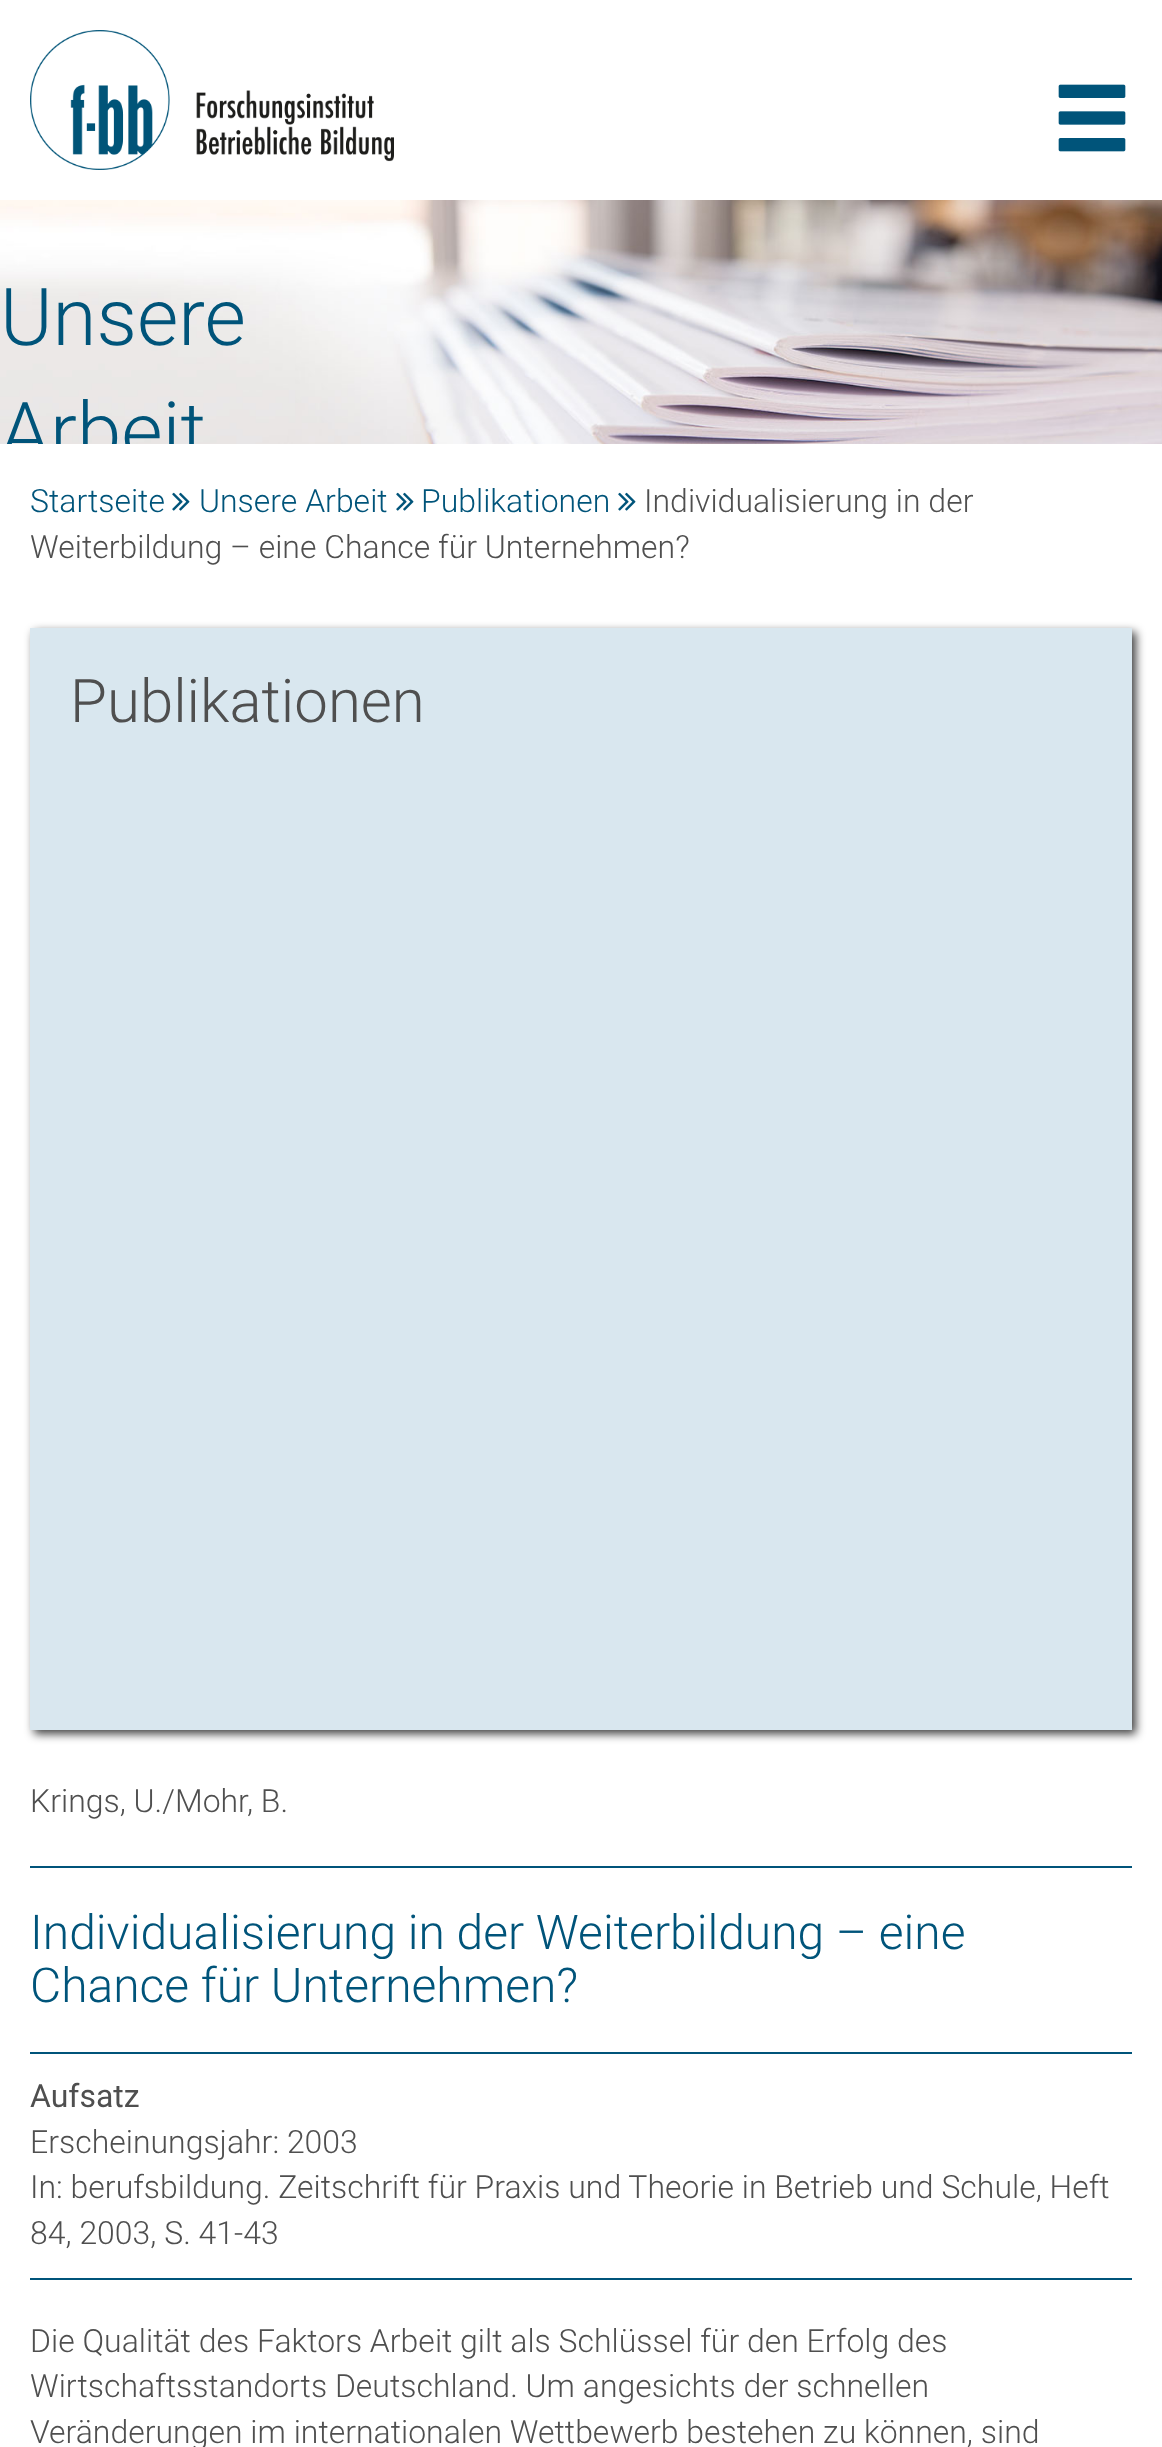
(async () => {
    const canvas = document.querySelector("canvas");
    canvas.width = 1162;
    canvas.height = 2447;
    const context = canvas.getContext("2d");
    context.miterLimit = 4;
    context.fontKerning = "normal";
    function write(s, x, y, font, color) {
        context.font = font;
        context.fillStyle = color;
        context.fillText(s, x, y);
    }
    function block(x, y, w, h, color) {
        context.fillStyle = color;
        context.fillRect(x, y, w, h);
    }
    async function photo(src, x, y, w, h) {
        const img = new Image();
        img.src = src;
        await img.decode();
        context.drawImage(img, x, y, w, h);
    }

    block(0, 0, 1162, 2447, "rgb(255, 255, 255)");
    await photo("media/1.png", 30, 30, 364, 140);
    await photo("media/2.png", 1058, 84, 68, 68);
    await photo("media/3.png", 0, 200, 1162, 244);
    write("Unsere", 0, 345, "300 80px Roboto", "rgb(0, 84, 122)");
    context.save();
    context.beginPath();
    context.rect(0, 200, 1162, 244);
    context.clip();
    write("Arbeit", 0, 459, "300 80px Roboto", "rgb(0, 84, 122)");
    context.restore();
    write("Startseite", 30, 512, "300 32px Roboto", "rgb(0, 84, 122)");
    await photo("media/4.png", 172, 492, 18, 19);
    write("Unsere Arbeit", 199, 512, "300 32px Roboto", "rgb(0, 84, 122)");
    await photo("media/4.png", 396, 492, 18, 19);
    write("Publikationen", 421, 512, "300 32px Roboto", "rgb(0, 84, 122)");
    await photo("media/4.png", 618, 492, 18, 19);
    write("Individualisierung in der", 644, 512, "300 32px Roboto", "rgb(79, 79, 79)");
    write("Weiterbildung – eine Chance für Unternehmen?", 30, 558, "300 32px Roboto", "rgb(79, 79, 79)");
    context.fillStyle = "rgba(0, 0, 0, 0.75)";
    context.filter = "blur(5px)";
    context.beginPath();
    context.rect(34, 632, 1102, 1102);
    context.fill();
    context.filter = "none";
    block(30, 628, 1102, 1102, "rgb(217, 231, 239)");
    write("Publikationen", 70, 722, "300 60px Roboto", "rgb(79, 79, 79)");
    write("Krings, U./Mohr, B.", 30, 1812, "300 32px Roboto", "rgb(79, 79, 79)");
    block(30, 1866, 1102, 2, "rgb(0, 84, 122)");
    block(30, 2052, 1102, 2, "rgb(0, 84, 122)");
    write("Individualisierung in der Weiterbildung – eine", 30, 1949, "300 48px Roboto", "rgb(0, 84, 122)");
    write("Chance für Unternehmen?", 30, 2002, "300 48px Roboto", "rgb(0, 84, 122)");
    write("Aufsatz", 30, 2107, "32px Roboto", "rgb(79, 79, 79)");
    write("Erscheinungsjahr: 2003", 30, 2153, "300 32px Roboto", "rgb(79, 79, 79)");
    write("In: berufsbildung. Zeitschrift für Praxis und Theorie in Betrieb und Schule, Heft", 30, 2198, "300 32px Roboto", "rgb(79, 79, 79)");
    write("84, 2003, S. 41-43", 30, 2244, "300 32px Roboto", "rgb(79, 79, 79)");
    block(30, 2278, 1102, 2, "rgb(0, 84, 122)");
    write("Die Qualität des Faktors Arbeit gilt als Schlüssel für den Erfolg des", 30, 2352, "300 32px Roboto", "rgb(79, 79, 79)");
    write("Wirtschaftsstandorts Deutschland. Um angesichts der schnellen", 30, 2397, "300 32px Roboto", "rgb(79, 79, 79)");
    write("Veränderungen im internationalen Wettbewerb bestehen zu können, sind", 30, 2443, "300 32px Roboto", "rgb(79, 79, 79)");
})();
